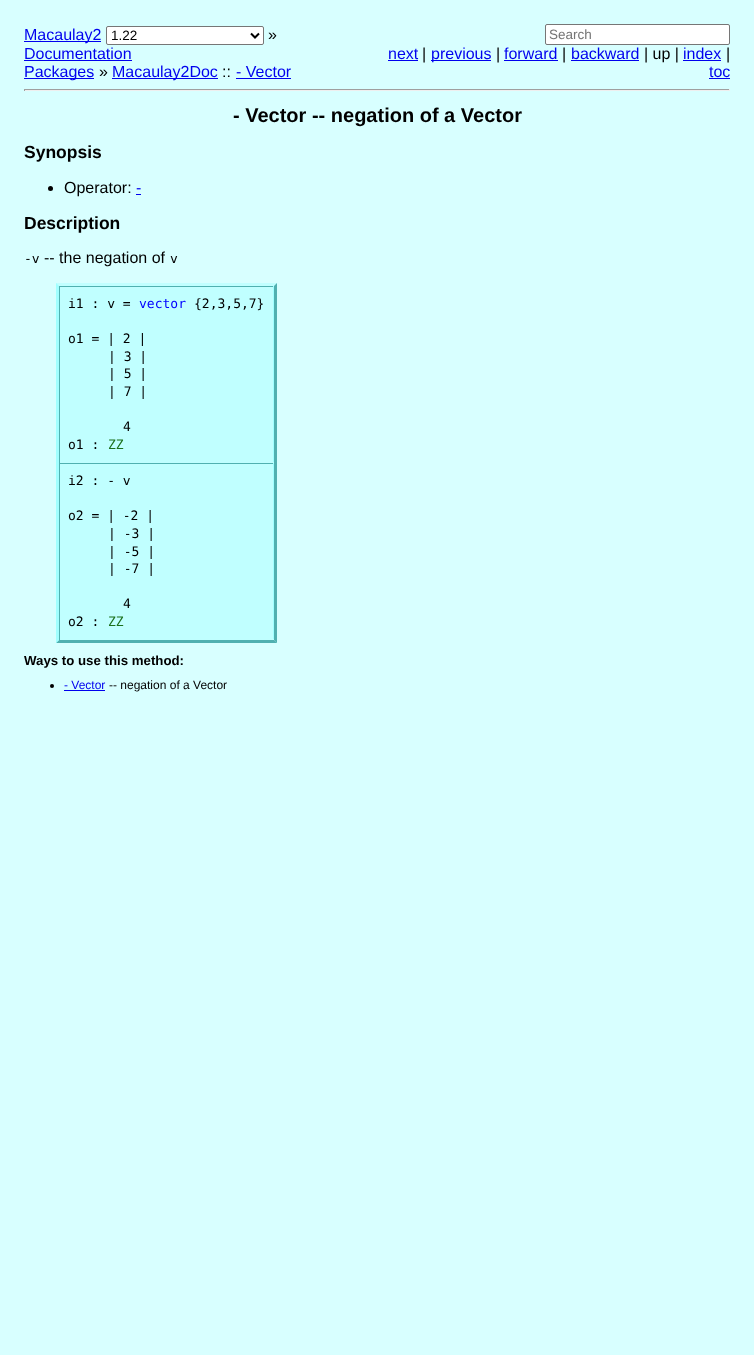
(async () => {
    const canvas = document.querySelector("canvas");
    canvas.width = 754;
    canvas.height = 1355;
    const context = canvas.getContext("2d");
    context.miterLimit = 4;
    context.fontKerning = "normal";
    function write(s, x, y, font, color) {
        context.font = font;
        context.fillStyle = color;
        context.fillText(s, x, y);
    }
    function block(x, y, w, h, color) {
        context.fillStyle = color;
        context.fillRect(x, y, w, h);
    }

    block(0, 0, 754, 1355, "rgb(216, 255, 255)");
    block(24, 41, 77, 1, "rgb(0, 0, 238)");
    write("Macaulay2", 24, 40, "16px Liberation Sans", "rgb(0, 0, 238)");
    context.fillStyle = "rgb(255, 255, 255)";
    context.beginPath();
    context.roundRect(106.5, 26.5, 157, 18, 1.5);
    context.fill();
    context.strokeStyle = "rgb(118, 118, 118)";
    context.stroke();
    context.beginPath();
    context.moveTo(251, 33.5);
    context.lineTo(255, 37.5);
    context.lineTo(259, 33.5);
    context.strokeStyle = "rgb(0, 0, 0)";
    context.lineWidth = 2;
    context.stroke();
    write("1.22", 111, 40, "13.5px Liberation Sans", "rgb(0, 0, 0)");
    write("»", 268, 40, "16px Liberation Sans", "rgb(0, 0, 0)");
    write("Documentation", 24, 59, "16px Liberation Sans", "rgb(0, 0, 238)");
    block(24, 60, 108, 1, "rgb(0, 0, 238)");
    block(24, 78, 70, 1, "rgb(0, 0, 238)");
    write("Packages", 24, 77, "16px Liberation Sans", "rgb(0, 0, 238)");
    write("»", 99, 77, "16px Liberation Sans", "rgb(0, 0, 0)");
    block(112, 78, 106, 1, "rgb(0, 0, 238)");
    write("Macaulay2Doc", 112, 77, "16px Liberation Sans", "rgb(0, 0, 238)");
    write("::", 222, 77, "16px Liberation Sans", "rgb(0, 0, 0)");
    write("- Vector", 236, 77, "16px Liberation Sans", "rgb(0, 0, 238)");
    block(236, 78, 55, 1, "rgb(0, 0, 238)");
    context.fillStyle = "rgb(255, 255, 255)";
    context.beginPath();
    context.roundRect(545.5, 24.5, 184, 20, 1.5);
    context.fill();
    context.strokeStyle = "rgb(118, 118, 118)";
    context.lineWidth = 1;
    context.stroke();
    write("Search", 549, 39, "13.5px Liberation Sans", "rgb(117, 117, 117)");
    write("next", 388, 59, "16px Liberation Sans", "rgb(0, 0, 238)");
    block(388, 60, 30, 1, "rgb(0, 0, 238)");
    write("|", 422, 59, "16px Liberation Sans", "rgb(0, 0, 0)");
    block(431, 60, 60, 1, "rgb(0, 0, 238)");
    write("previous", 431, 59, "16px Liberation Sans", "rgb(0, 0, 238)");
    write("|", 496, 59, "16px Liberation Sans", "rgb(0, 0, 0)");
    write("forward", 504, 59, "16px Liberation Sans", "rgb(0, 0, 238)");
    block(504, 60, 54, 1, "rgb(0, 0, 238)");
    write("|", 562, 59, "16px Liberation Sans", "rgb(0, 0, 0)");
    write("backward", 571, 59, "16px Liberation Sans", "rgb(0, 0, 238)");
    block(571, 60, 68, 1, "rgb(0, 0, 238)");
    write("| up |", 644, 59, "16px Liberation Sans", "rgb(0, 0, 0)");
    write("index", 683, 59, "16px Liberation Sans", "rgb(0, 0, 238)");
    block(683, 60, 38, 1, "rgb(0, 0, 238)");
    write("|", 726, 59, "16px Liberation Sans", "rgb(0, 0, 0)");
    write("toc", 709, 77, "16px Liberation Sans", "rgb(0, 0, 238)");
    block(709, 78, 21, 1, "rgb(0, 0, 238)");
    block(24, 89, 706, 1, "rgb(159, 159, 159)");
    block(729, 89, 1, 2, "rgb(238, 238, 238)");
    block(24, 90, 706, 1, "rgb(238, 238, 238)");
    block(24, 89, 1, 2, "rgb(159, 159, 159)");
    write("- Vector -- negation of a Vector", 233, 122, "bold 20px Liberation Sans", "rgb(0, 0, 0)");
    write("Synopsis", 24, 158, "bold 17.5px Liberation Sans", "rgb(0, 0, 0)");
    context.beginPath();
    context.arc(50.5, 188.5, 2.5, 0, Math.PI * 2);
    context.fill();
    write("Operator:", 64, 193, "16px Liberation Sans", "rgb(0, 0, 0)");
    write("-", 136, 193, "16px Liberation Sans", "rgb(0, 0, 238)");
    block(136, 194, 5, 1, "rgb(0, 0, 238)");
    write("Description", 24, 229, "bold 17.5px Liberation Sans", "rgb(0, 0, 0)");
    write("-v", 24, 263, "13px DejaVu Sans Mono", "rgb(0, 0, 0)");
    write("-- the negation of", 44, 263, "16px Liberation Sans", "rgb(0, 0, 0)");
    write("v", 170, 263, "13px DejaVu Sans Mono", "rgb(0, 0, 0)");
    block(56, 283, 221, 360, "rgb(192, 255, 255)");
    context.fillStyle = "rgb(80, 176, 176)";
    context.beginPath();
    context.moveTo(277, 283);
    context.lineTo(277, 643);
    context.lineTo(274, 640);
    context.lineTo(274, 286);
    context.closePath();
    context.fill();
    context.beginPath();
    context.moveTo(277, 643);
    context.lineTo(56, 643);
    context.lineTo(59, 640);
    context.lineTo(274, 640);
    context.closePath();
    context.fill();
    context.fillStyle = "rgb(160, 255, 255)";
    context.beginPath();
    context.moveTo(56, 643);
    context.lineTo(56, 283);
    context.lineTo(59, 286);
    context.lineTo(59, 640);
    context.closePath();
    context.fill();
    block(59, 286, 215, 1, "rgb(80, 176, 176)");
    block(273, 286, 1, 177, "rgb(160, 255, 255)");
    block(273, 462, 1, 1, "rgb(192, 255, 255)");
    block(59, 286, 1, 177, "rgb(80, 176, 176)");
    write("i1 : v =", 68, 308, "13px DejaVu Sans Mono", "rgb(0, 0, 0)");
    write("vector", 139, 308, "13px DejaVu Sans Mono", "rgb(0, 0, 255)");
    write("{2,3,5,7}", 194, 308, "13px DejaVu Sans Mono", "rgb(0, 0, 0)");
    write("o1 = | 2 |", 68, 343, "13px DejaVu Sans Mono", "rgb(0, 0, 0)");
    write("| 3 |", 108, 361, "13px DejaVu Sans Mono", "rgb(0, 0, 0)");
    write("| 5 |", 108, 378, "13px DejaVu Sans Mono", "rgb(0, 0, 0)");
    write("| 7 |", 108, 396, "13px DejaVu Sans Mono", "rgb(0, 0, 0)");
    write("4", 123, 431, "13px DejaVu Sans Mono", "rgb(0, 0, 0)");
    write("o1 :", 68, 449, "13px DejaVu Sans Mono", "rgb(0, 0, 0)");
    write("ZZ", 108, 449, "13px DejaVu Sans Mono", "rgb(28, 112, 28)");
    block(59, 463, 215, 1, "rgb(80, 176, 176)");
    block(273, 463, 1, 177, "rgb(160, 255, 255)");
    block(273, 639, 1, 1, "rgb(192, 255, 255)");
    block(59, 463, 1, 177, "rgb(80, 176, 176)");
    write("i2 : - v", 68, 485, "13px DejaVu Sans Mono", "rgb(0, 0, 0)");
    write("o2 = | -2 |", 68, 520, "13px DejaVu Sans Mono", "rgb(0, 0, 0)");
    write("| -3 |", 108, 538, "13px DejaVu Sans Mono", "rgb(0, 0, 0)");
    write("| -5 |", 108, 556, "13px DejaVu Sans Mono", "rgb(0, 0, 0)");
    write("| -7 |", 108, 573, "13px DejaVu Sans Mono", "rgb(0, 0, 0)");
    write("4", 123, 608, "13px DejaVu Sans Mono", "rgb(0, 0, 0)");
    write("o2 :", 68, 626, "13px DejaVu Sans Mono", "rgb(0, 0, 0)");
    write("ZZ", 108, 626, "13px DejaVu Sans Mono", "rgb(28, 112, 28)");
    write("Ways to use this method:", 24, 665, "bold 13.25px Liberation Sans", "rgb(0, 0, 0)");
    context.beginPath();
    context.arc(52, 686, 2, 0, Math.PI * 2);
    context.fill();
    write("- Vector", 64, 689, "12px Liberation Sans", "rgb(0, 0, 238)");
    block(64, 690, 41, 1, "rgb(0, 0, 238)");
    write("-- negation of a Vector", 109, 689, "12px Liberation Sans", "rgb(0, 0, 0)");
})();
